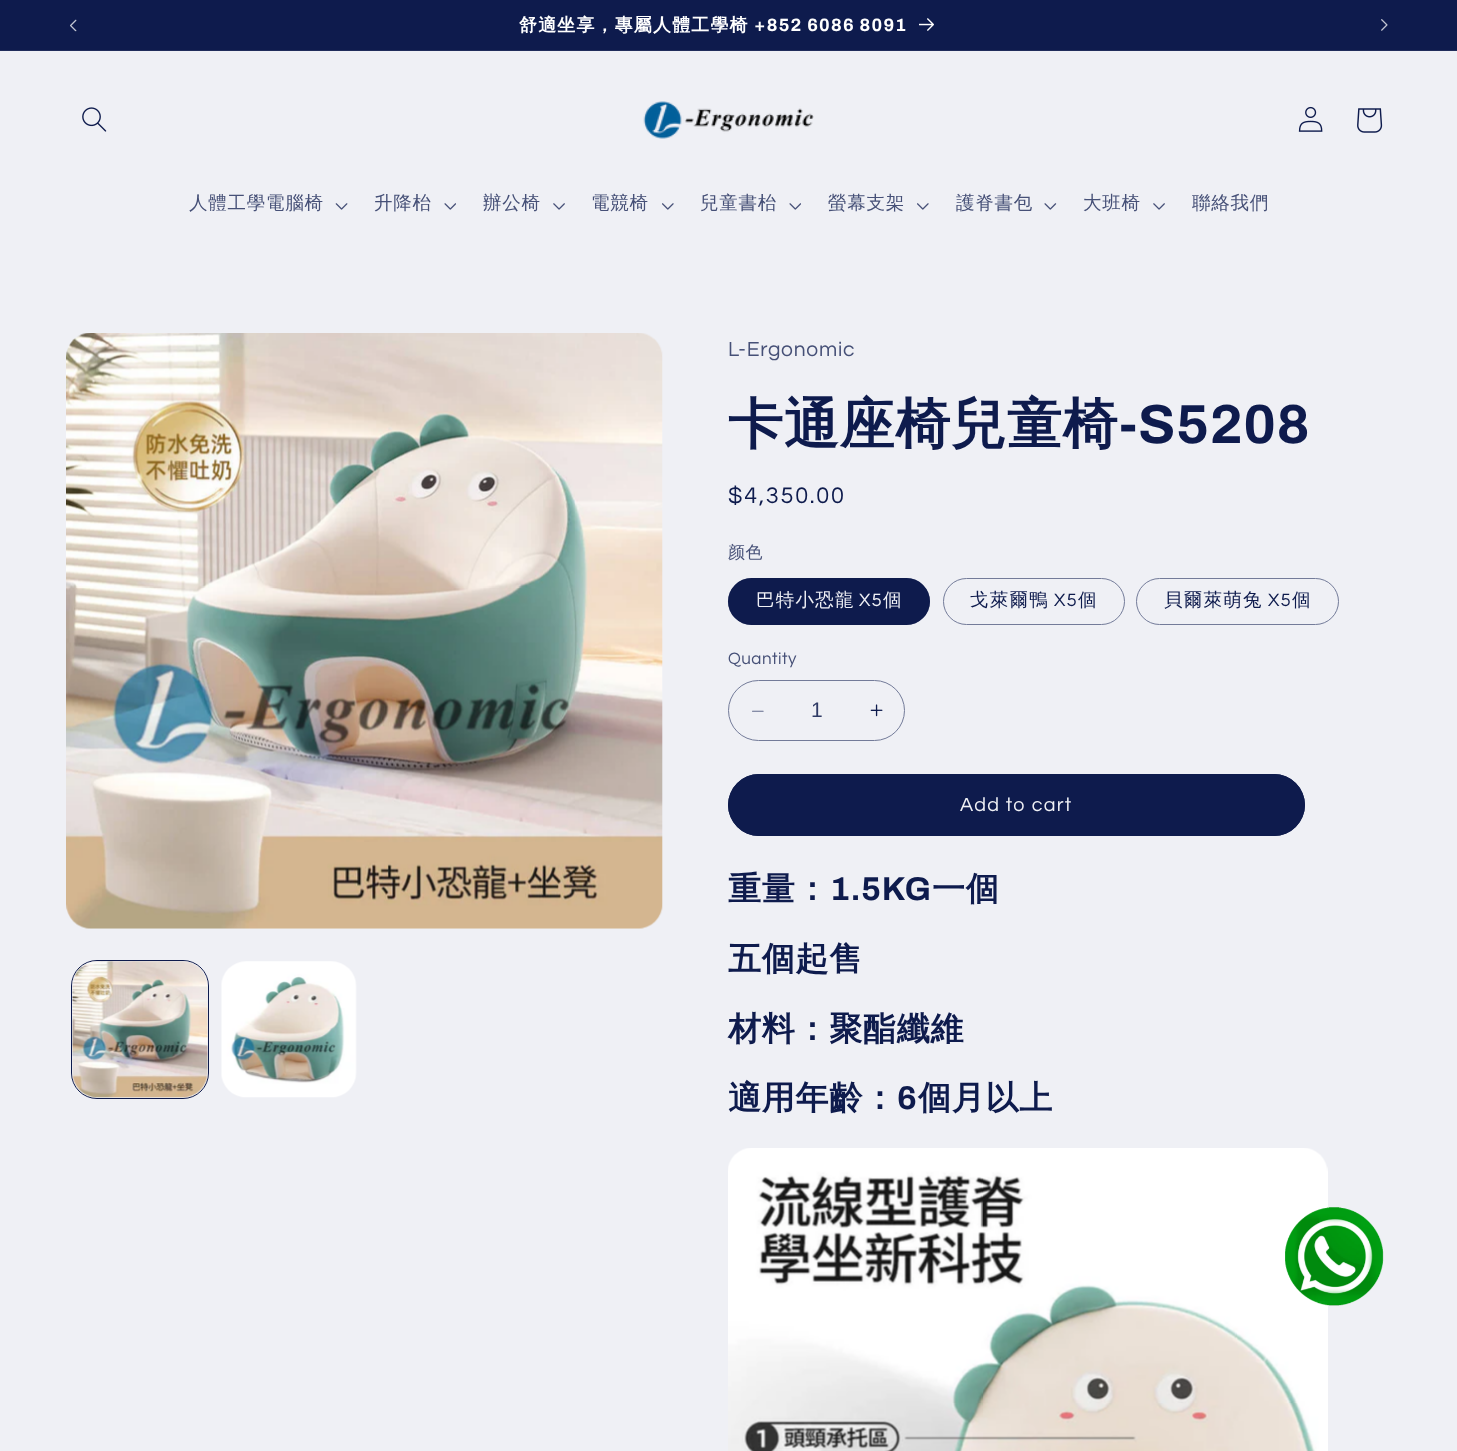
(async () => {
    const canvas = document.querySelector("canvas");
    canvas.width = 1457;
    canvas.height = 1451;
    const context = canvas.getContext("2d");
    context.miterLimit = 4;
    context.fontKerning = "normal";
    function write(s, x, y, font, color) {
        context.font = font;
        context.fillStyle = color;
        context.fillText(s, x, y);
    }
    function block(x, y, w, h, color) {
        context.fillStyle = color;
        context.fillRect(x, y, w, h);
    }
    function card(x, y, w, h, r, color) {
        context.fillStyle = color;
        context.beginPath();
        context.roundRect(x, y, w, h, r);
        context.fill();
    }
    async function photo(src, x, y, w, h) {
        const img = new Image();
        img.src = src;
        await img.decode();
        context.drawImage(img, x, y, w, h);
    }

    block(0, 0, 1457, 1451, "rgb(239, 240, 245)");
    block(0, 0, 1457, 50, "rgb(14, 27, 77)");
    block(0, 50, 1457, 1, "rgb(33, 45, 91)");
    await photo("media/1.png", 70, 19, 7, 13);
    context.letterSpacing = "1.25px";
    write("舒適坐享，專屬人體工學椅", 519, 31, "bold 17.9px WenQuanYi Zen Hei", "rgb(255, 255, 255)");
    write("+852 6086 8091", 754, 31, "bold 17.9px Archivo", "rgb(255, 255, 255)");
    await photo("media/2.png", 919, 18, 15, 13);
    await photo("media/3.png", 1381, 19, 7, 12);
    await photo("media/4.png", 82, 107, 25, 25);
    await photo("media/5.png", 643, 101, 171, 38);
    await photo("media/6.png", 1298, 106, 25, 26);
    await photo("media/7.png", 1357, 108, 26, 25);
    context.letterSpacing = "0.75px";
    write("人體工學電腦椅", 189, 209, "500 18.5px WenQuanYi Zen Hei", "rgb(70, 80, 119)");
    await photo("media/8.png", 335, 203, 13, 7);
    write("升降枱", 374, 209, "500 18.5px WenQuanYi Zen Hei", "rgb(70, 80, 119)");
    await photo("media/9.png", 444, 203, 12, 7);
    write("辦公椅", 483, 209, "500 18.5px WenQuanYi Zen Hei", "rgb(70, 80, 119)");
    await photo("media/10.png", 553, 203, 12, 7);
    write("電競椅", 591, 209, "500 18.5px WenQuanYi Zen Hei", "rgb(70, 80, 119)");
    await photo("media/11.png", 662, 203, 12, 7);
    write("兒童書枱", 700, 209, "500 18.5px WenQuanYi Zen Hei", "rgb(70, 80, 119)");
    await photo("media/9.png", 789, 203, 12, 7);
    write("螢幕支架", 828, 209, "500 18.5px WenQuanYi Zen Hei", "rgb(70, 80, 119)");
    await photo("media/11.png", 917, 203, 12, 7);
    write("護脊書包", 956, 209, "500 18.5px WenQuanYi Zen Hei", "rgb(70, 80, 119)");
    await photo("media/12.png", 1044, 203, 13, 7);
    write("大班椅", 1083, 209, "500 18.5px WenQuanYi Zen Hei", "rgb(70, 80, 119)");
    await photo("media/10.png", 1153, 203, 12, 7);
    write("聯絡我們", 1192, 209, "500 18.5px WenQuanYi Zen Hei", "rgb(70, 80, 119)");
    await photo("media/13.png", 66, 333, 597, 596);
    context.beginPath();
    context.roundRect(71.5, 960.5, 137, 138, 25.5);
    context.strokeStyle = "rgb(14, 27, 77)";
    context.stroke();
    await photo("media/14.png", 72, 961, 136, 137);
    await photo("media/15.png", 221, 961, 136, 137);
    write("L-Ergonomic", 728, 356, "21px Questrial", "rgb(70, 80, 119)");
    write("卡通座椅兒童椅", 728, 443, "bold 55px WenQuanYi Zen Hei", "rgb(14, 27, 77)");
    write("-S5208", 1119, 443, "bold 55px Archivo", "rgb(14, 27, 77)");
    context.letterSpacing = "1.75px";
    write("$4,350.00", 728, 503, "23.5px Questrial", "rgb(14, 27, 77)");
    context.letterSpacing = "0.5px";
    write("颜色", 728, 558, "500 17px WenQuanYi Zen Hei", "rgb(70, 80, 119)");
    card(728, 578, 202, 47, 23.5, "rgb(14, 27, 77)");
    context.beginPath();
    context.roundRect(728.5, 578.5, 201, 46, 23);
    context.strokeStyle = "rgba(14, 27, 77, 0.55)";
    context.stroke();
    context.letterSpacing = "1.25px";
    write("巴特小恐龍", 756, 606, "500 18.5px WenQuanYi Zen Hei", "rgb(239, 240, 245)");
    write("X5", 859, 606, "18.5px Questrial", "rgb(239, 240, 245)");
    write("個", 883, 606, "500 18.5px WenQuanYi Zen Hei", "rgb(239, 240, 245)");
    context.beginPath();
    context.roundRect(943.5, 578.5, 181, 46, 23);
    context.strokeStyle = "rgb(115, 123, 153)";
    context.stroke();
    write("戈萊爾鴨", 970, 606, "500 18.5px WenQuanYi Zen Hei", "rgb(14, 27, 77)");
    write("X5", 1054, 606, "18.5px Questrial", "rgb(14, 27, 77)");
    write("個", 1078, 606, "500 18.5px WenQuanYi Zen Hei", "rgb(14, 27, 77)");
    context.beginPath();
    context.roundRect(1136.5, 578.5, 202, 46, 23);
    context.stroke();
    write("貝爾萊萌兔", 1164, 606, "500 18.5px WenQuanYi Zen Hei", "rgb(14, 27, 77)");
    write("X5", 1268, 606, "18.5px Questrial", "rgb(14, 27, 77)");
    write("個", 1292, 606, "500 18.5px WenQuanYi Zen Hei", "rgb(14, 27, 77)");
    context.letterSpacing = "0.5px";
    write("Quantity", 728, 664, "17px Questrial", "rgb(70, 80, 119)");
    await photo("media/16.png", 752, 710, 12, 2);
    await photo("media/17.png", 870, 704, 13, 13);
    context.beginPath();
    context.roundRect(728.5, 680.5, 176, 60, 30);
    context.stroke();
    context.letterSpacing = "0px";
    write("1", 811, 717, "21px Liberation Sans", "rgb(48, 59, 102)");
    card(728, 774, 577, 62, 31, "rgb(14, 27, 77)");
    context.beginPath();
    context.roundRect(728.5, 774.5, 576, 61, 30.5);
    context.strokeStyle = "rgb(14, 27, 77)";
    context.stroke();
    context.letterSpacing = "1.25px";
    write("Add to cart", 960, 811, "19.75px Questrial", "rgb(239, 240, 245)");
    context.letterSpacing = "0.75px";
    write("重量：", 728, 900, "bold 33px WenQuanYi Zen Hei", "rgb(14, 27, 77)");
    write("1.5KG", 830, 900, "bold 33px Archivo", "rgb(14, 27, 77)");
    write("一個", 932, 900, "bold 33px WenQuanYi Zen Hei", "rgb(14, 27, 77)");
    write("五個起售", 728, 970, "bold 33px WenQuanYi Zen Hei", "rgb(14, 27, 77)");
    write("材料：聚酯纖維", 728, 1040, "bold 33px WenQuanYi Zen Hei", "rgb(14, 27, 77)");
    write("適用年齡：", 728, 1109, "bold 33px WenQuanYi Zen Hei", "rgb(14, 27, 77)");
    write("6", 897, 1109, "bold 33px Archivo", "rgb(14, 27, 77)");
    write("個月以上", 918, 1109, "bold 33px WenQuanYi Zen Hei", "rgb(14, 27, 77)");
    await photo("media/18.png", 728, 1148, 600, 303);
    await photo("media/19.png", 1285, 1207, 99, 99);
})();
